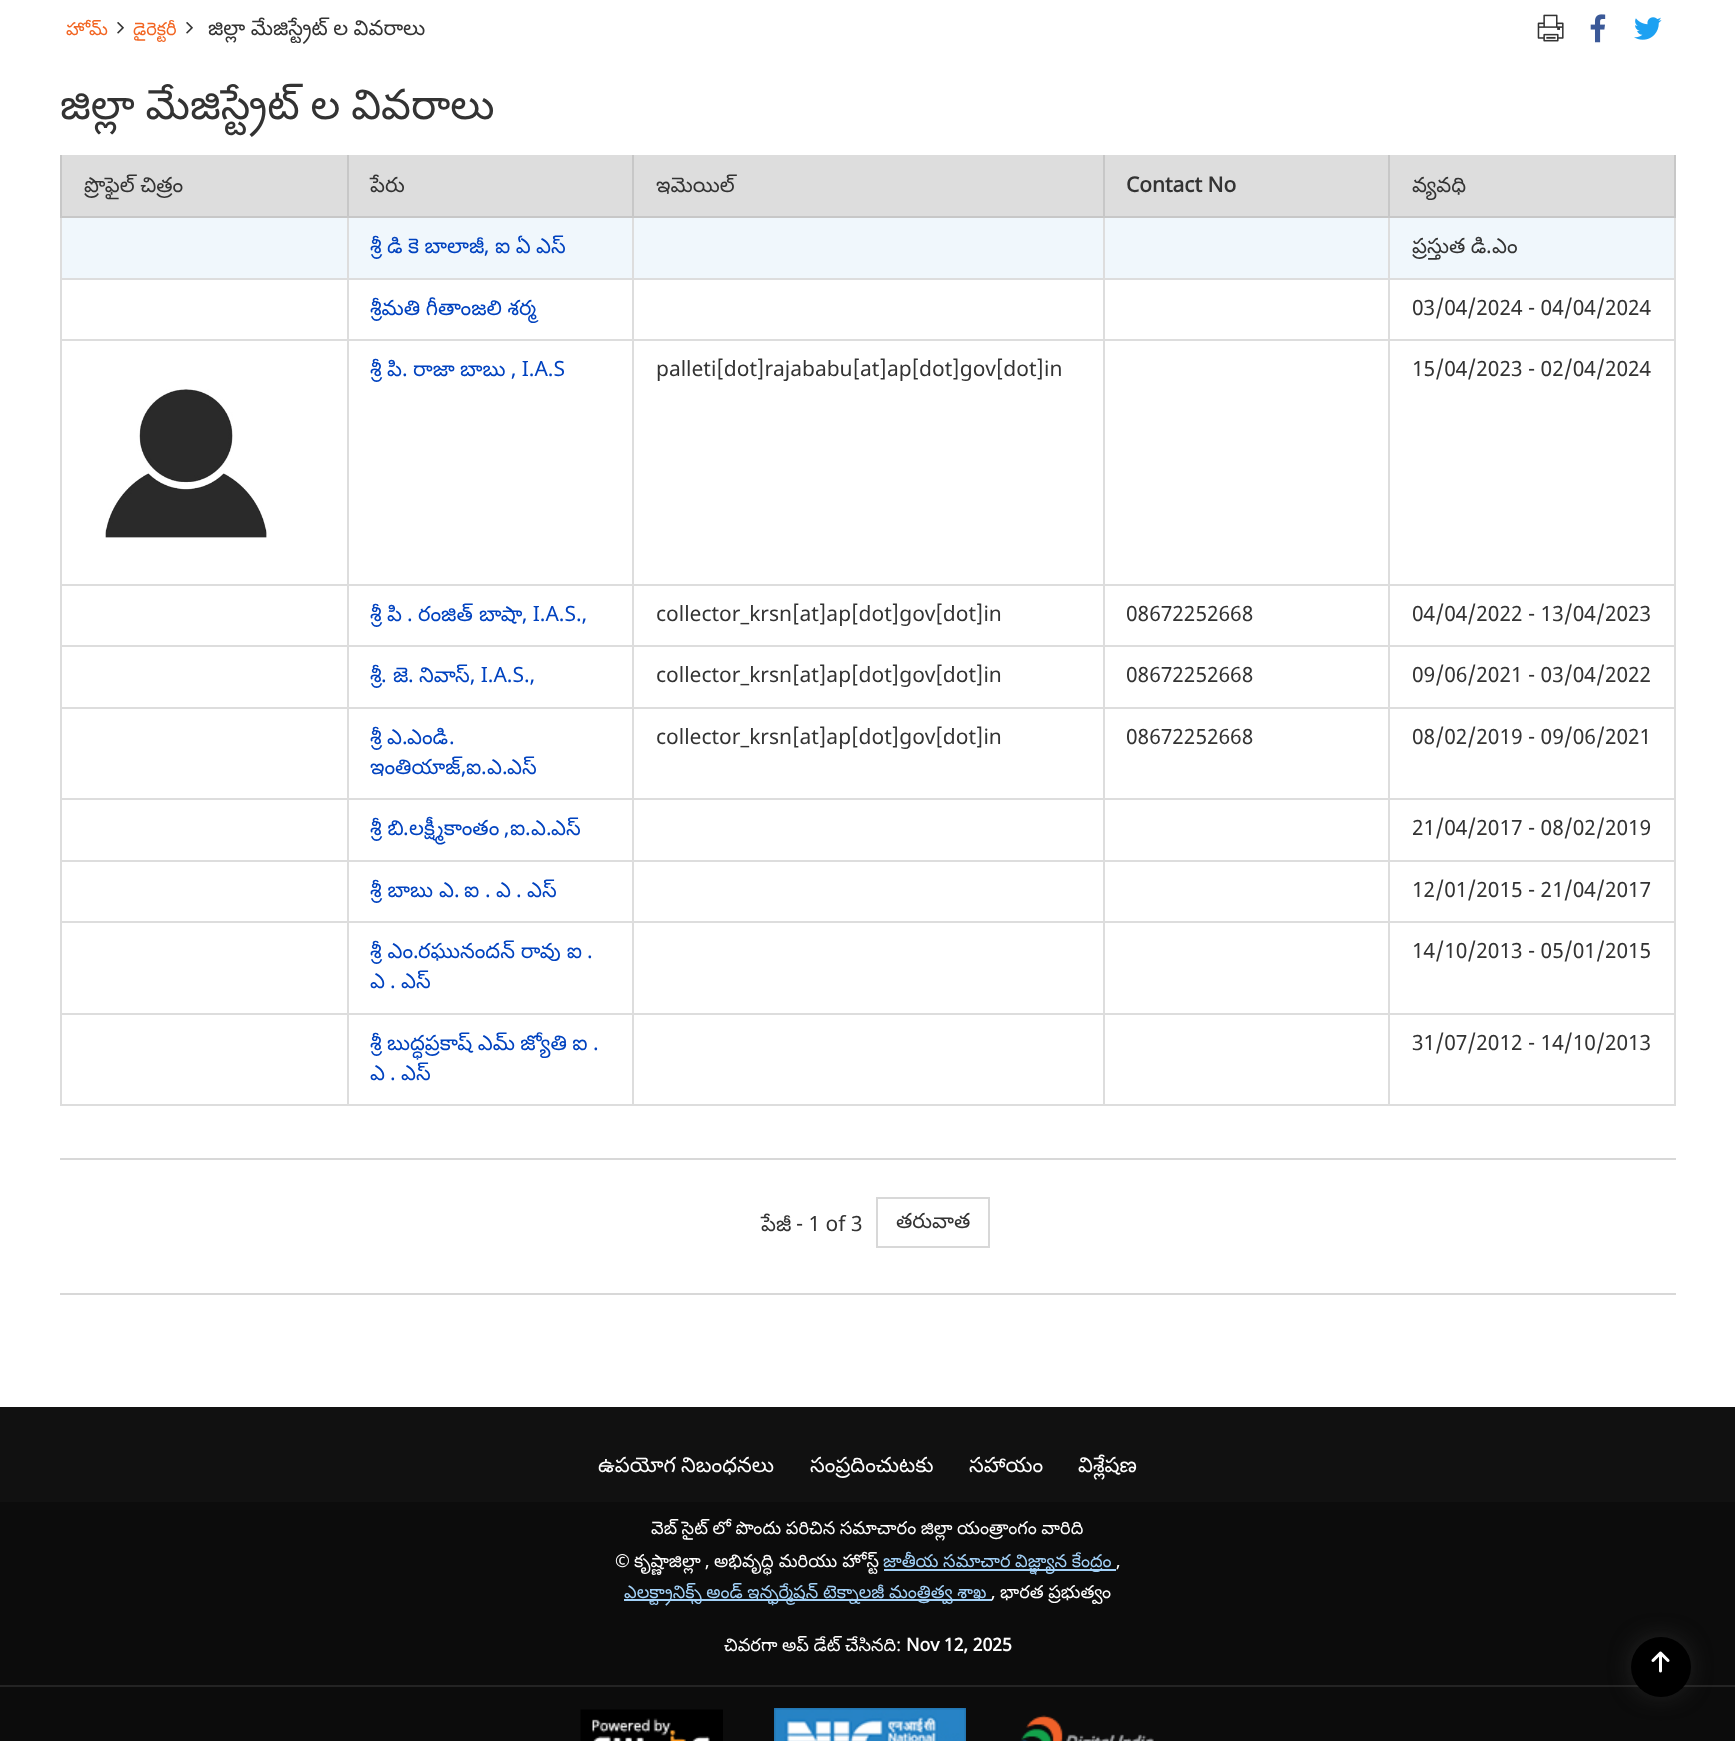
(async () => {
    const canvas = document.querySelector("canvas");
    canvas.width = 1735;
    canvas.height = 1741;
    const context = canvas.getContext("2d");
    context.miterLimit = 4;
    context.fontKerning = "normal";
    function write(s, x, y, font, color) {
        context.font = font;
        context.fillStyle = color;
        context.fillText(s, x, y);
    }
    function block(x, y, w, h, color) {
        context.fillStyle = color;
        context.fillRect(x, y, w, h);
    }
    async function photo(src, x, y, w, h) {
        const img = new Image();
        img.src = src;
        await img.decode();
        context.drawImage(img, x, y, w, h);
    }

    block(0, 0, 1735, 1741, "rgb(255, 255, 255)");
    write("హోమ్", 66, 35, "17.85px Noto Sans Telugu", "rgb(242, 101, 34)");
    await photo("media/1.png", 117, 22, 7, 12);
    write("డైరెక్టరీ", 133, 35, "17.85px Noto Sans Telugu", "rgb(242, 101, 34)");
    await photo("media/1.png", 186, 22, 7, 12);
    context.wordSpacing = "-0.5px";
    write("జిల్లా మేజిస్ట్రేట్ ల వివరాలు", 208, 35, "21px Noto Sans Telugu", "rgb(51, 51, 51)");
    await photo("media/2.png", 1537, 14, 27, 28);
    await photo("media/3.png", 1590, 14, 16, 29);
    await photo("media/4.png", 1634, 17, 28, 23);
    context.wordSpacing = "-1px";
    write("జిల్లా మేజిస్ట్రేట్ ల వివరాలు", 60, 119, "42px Noto Sans Telugu", "rgb(51, 51, 51)");
    block(1674, 218, 2, 888, "rgb(221, 221, 221)");
    block(60, 1104, 1616, 2, "rgb(221, 221, 221)");
    block(60, 218, 2, 888, "rgb(221, 221, 221)");
    block(62, 155, 285, 61, "rgb(221, 221, 221)");
    block(1674, 155, 2, 63, "rgb(199, 199, 199)");
    block(62, 218, 1612, 60, "rgb(240, 247, 252)");
    block(60, 278, 1616, 2, "rgb(221, 221, 221)");
    block(60, 339, 1616, 2, "rgb(221, 221, 221)");
    block(60, 584, 1616, 2, "rgb(221, 221, 221)");
    block(60, 645, 1616, 2, "rgb(221, 221, 221)");
    block(60, 707, 1616, 2, "rgb(221, 221, 221)");
    block(60, 798, 1616, 2, "rgb(221, 221, 221)");
    block(60, 860, 1616, 2, "rgb(221, 221, 221)");
    block(60, 921, 1616, 2, "rgb(221, 221, 221)");
    block(60, 1013, 1616, 2, "rgb(221, 221, 221)");
    block(1388, 1013, 2, 93, "rgb(221, 221, 221)");
    block(1388, 921, 2, 93, "rgb(221, 221, 221)");
    block(1388, 860, 2, 63, "rgb(221, 221, 221)");
    block(1388, 798, 2, 63, "rgb(221, 221, 221)");
    block(1388, 707, 2, 93, "rgb(221, 221, 221)");
    block(1388, 645, 2, 63, "rgb(221, 221, 221)");
    block(1388, 584, 2, 63, "rgb(221, 221, 221)");
    block(1388, 339, 2, 246, "rgb(221, 221, 221)");
    block(1388, 216, 2, 125, "rgb(221, 221, 221)");
    block(1388, 216, 288, 2, "rgb(199, 199, 199)");
    block(1388, 155, 2, 63, "rgb(199, 199, 199)");
    block(1103, 1013, 2, 93, "rgb(221, 221, 221)");
    block(1103, 921, 2, 93, "rgb(221, 221, 221)");
    block(1103, 860, 2, 63, "rgb(221, 221, 221)");
    block(1103, 798, 2, 63, "rgb(221, 221, 221)");
    block(1103, 707, 2, 93, "rgb(221, 221, 221)");
    block(1103, 645, 2, 63, "rgb(221, 221, 221)");
    block(1103, 584, 2, 63, "rgb(221, 221, 221)");
    block(1103, 339, 2, 246, "rgb(221, 221, 221)");
    block(1103, 216, 2, 125, "rgb(221, 221, 221)");
    block(1103, 216, 286, 2, "rgb(199, 199, 199)");
    block(1103, 155, 2, 63, "rgb(199, 199, 199)");
    block(632, 1013, 2, 93, "rgb(221, 221, 221)");
    block(632, 921, 2, 93, "rgb(221, 221, 221)");
    block(632, 860, 2, 63, "rgb(221, 221, 221)");
    block(632, 798, 2, 63, "rgb(221, 221, 221)");
    block(632, 707, 2, 93, "rgb(221, 221, 221)");
    block(632, 645, 2, 63, "rgb(221, 221, 221)");
    block(632, 584, 2, 63, "rgb(221, 221, 221)");
    block(632, 339, 2, 246, "rgb(221, 221, 221)");
    block(632, 216, 2, 125, "rgb(221, 221, 221)");
    block(632, 216, 472, 2, "rgb(199, 199, 199)");
    block(632, 155, 2, 63, "rgb(199, 199, 199)");
    block(347, 1013, 2, 93, "rgb(221, 221, 221)");
    block(347, 921, 2, 93, "rgb(221, 221, 221)");
    block(347, 860, 2, 63, "rgb(221, 221, 221)");
    block(347, 798, 2, 63, "rgb(221, 221, 221)");
    block(347, 707, 2, 93, "rgb(221, 221, 221)");
    block(347, 645, 2, 63, "rgb(221, 221, 221)");
    block(347, 584, 2, 63, "rgb(221, 221, 221)");
    block(347, 339, 2, 246, "rgb(221, 221, 221)");
    block(347, 216, 2, 125, "rgb(221, 221, 221)");
    block(347, 216, 286, 2, "rgb(199, 199, 199)");
    block(347, 155, 2, 63, "rgb(199, 199, 199)");
    block(60, 216, 288, 2, "rgb(199, 199, 199)");
    block(60, 155, 2, 63, "rgb(199, 199, 199)");
    context.wordSpacing = "-0.5px";
    write("ప్రొఫైల్ చిత్రం", 84, 192, "21px Noto Sans Telugu", "rgb(51, 51, 51)");
    block(349, 155, 283, 61, "rgb(221, 221, 221)");
    context.wordSpacing = "0px";
    write("పేరు", 370, 192, "21px Noto Sans Telugu", "rgb(51, 51, 51)");
    block(634, 155, 469, 61, "rgb(221, 221, 221)");
    write("ఇమెయిల్", 656, 192, "21px Noto Sans Telugu", "rgb(51, 51, 51)");
    block(1105, 155, 283, 61, "rgb(221, 221, 221)");
    write("Contact No", 1126, 192, "bold 21px Noto Sans", "rgb(51, 51, 51)");
    block(1390, 155, 284, 61, "rgb(221, 221, 221)");
    write("వ్యవధి", 1412, 192, "21px Noto Sans Telugu", "rgb(51, 51, 51)");
    context.wordSpacing = "-0.5px";
    write("శ్రీ డి కె బాలాజీ", 370, 253, "21px Noto Sans Telugu", "rgb(0, 66, 191)");
    context.wordSpacing = "0px";
    write(",", 484, 253, "21px Noto Sans", "rgb(0, 66, 191)");
    context.wordSpacing = "-0.5px";
    write("ఐ ఏ ఎస్", 495, 253, "21px Noto Sans Telugu", "rgb(0, 66, 191)");
    write("ప్రస్తుత డి", 1412, 253, "21px Noto Sans Telugu", "rgb(51, 51, 51)");
    context.wordSpacing = "0px";
    write(".", 1486, 253, "21px Noto Sans", "rgb(51, 51, 51)");
    write("ఎం", 1492, 253, "21px Noto Sans Telugu", "rgb(51, 51, 51)");
    context.wordSpacing = "-0.5px";
    write("శ్రీమతి గీతాంజలి శర్మ", 370, 315, "21px Noto Sans Telugu", "rgb(0, 66, 191)");
    context.wordSpacing = "0px";
    write("03/04/2024 - 04/04/2024", 1412, 315, "21px Noto Sans", "rgb(51, 51, 51)");
    await photo("media/5.png", 105, 389, 162, 149);
    write("శ్రీ", 370, 376, "21px Noto Sans Telugu", "rgb(0, 66, 191)");
    write("పి", 387, 376, "21px Noto Sans Telugu", "rgb(0, 66, 191)");
    write(".", 402, 376, "21px Noto Sans", "rgb(0, 66, 191)");
    write("రాజా", 413, 376, "21px Noto Sans Telugu", "rgb(0, 66, 191)");
    write("బాబు", 460, 376, "21px Noto Sans Telugu", "rgb(0, 66, 191)");
    write(", I.A.S", 511, 376, "21px Noto Sans", "rgb(0, 66, 191)");
    write("palleti[dot]rajababu[at]ap[dot]gov[dot]in", 656, 376, "21px Noto Sans", "rgb(51, 51, 51)");
    write("15/04/2023 - 02/04/2024", 1412, 376, "21px Noto Sans", "rgb(51, 51, 51)");
    write("శ్రీ", 370, 621, "21px Noto Sans Telugu", "rgb(0, 66, 191)");
    write("పి", 387, 621, "21px Noto Sans Telugu", "rgb(0, 66, 191)");
    write(".", 407, 621, "21px Noto Sans", "rgb(0, 66, 191)");
    write("రంజిత్", 418, 621, "21px Noto Sans Telugu", "rgb(0, 66, 191)");
    write("బాషా", 479, 621, "21px Noto Sans Telugu", "rgb(0, 66, 191)");
    write(", I.A.S.,", 522, 621, "21px Noto Sans", "rgb(0, 66, 191)");
    write("collector_krsn[at]ap[dot]gov[dot]in", 656, 621, "21px Noto Sans", "rgb(51, 51, 51)");
    write("08672252668", 1126, 621, "21px Noto Sans", "rgb(51, 51, 51)");
    write("04/04/2022 - 13/04/2023", 1412, 621, "21px Noto Sans", "rgb(51, 51, 51)");
    write("శ్రీ", 370, 682, "21px Noto Sans Telugu", "rgb(0, 66, 191)");
    write(".", 381, 682, "21px Noto Sans", "rgb(0, 66, 191)");
    write("జె", 393, 682, "21px Noto Sans Telugu", "rgb(0, 66, 191)");
    write(".", 408, 682, "21px Noto Sans", "rgb(0, 66, 191)");
    write("నివాస్", 419, 682, "21px Noto Sans Telugu", "rgb(0, 66, 191)");
    write(", I.A.S.,", 470, 682, "21px Noto Sans", "rgb(0, 66, 191)");
    write("collector_krsn[at]ap[dot]gov[dot]in", 656, 682, "21px Noto Sans", "rgb(51, 51, 51)");
    write("08672252668", 1126, 682, "21px Noto Sans", "rgb(51, 51, 51)");
    write("09/06/2021 - 03/04/2022", 1412, 682, "21px Noto Sans", "rgb(51, 51, 51)");
    context.wordSpacing = "-0.5px";
    write("శ్రీ ఎ", 370, 744, "21px Noto Sans Telugu", "rgb(0, 66, 191)");
    context.wordSpacing = "0px";
    write(".", 402, 744, "21px Noto Sans", "rgb(0, 66, 191)");
    write("ఎండి", 407, 744, "21px Noto Sans Telugu", "rgb(0, 66, 191)");
    write(".", 449, 744, "21px Noto Sans", "rgb(0, 66, 191)");
    write("ఇంతియాజ్", 370, 774, "21px Noto Sans Telugu", "rgb(0, 66, 191)");
    write("ఐ", 466, 774, "21px Noto Sans Telugu", "rgb(0, 66, 191)");
    write("ఎ", 487, 774, "21px Noto Sans Telugu", "rgb(0, 66, 191)");
    write("ఎస్", 507, 774, "21px Noto Sans Telugu", "rgb(0, 66, 191)");
    write(",", 461, 774, "21px Noto Sans", "rgb(0, 66, 191)");
    write(".", 481, 774, "21px Noto Sans", "rgb(0, 66, 191)");
    write(".", 502, 774, "21px Noto Sans", "rgb(0, 66, 191)");
    write("collector_krsn[at]ap[dot]gov[dot]in", 656, 744, "21px Noto Sans", "rgb(51, 51, 51)");
    write("08672252668", 1126, 744, "21px Noto Sans", "rgb(51, 51, 51)");
    write("08/02/2019 - 09/06/2021", 1412, 744, "21px Noto Sans", "rgb(51, 51, 51)");
    write("శ్రీ బి", 370, 835, "21px Noto Sans Telugu", "rgb(0, 66, 191)");
    write(".", 403, 835, "21px Noto Sans", "rgb(0, 66, 191)");
    write("లక్ష్మీకాంతం", 409, 835, "21px Noto Sans Telugu", "rgb(0, 66, 191)");
    write(",", 504, 835, "21px Noto Sans", "rgb(0, 66, 191)");
    write("ఐ", 510, 835, "21px Noto Sans Telugu", "rgb(0, 66, 191)");
    write(".", 525, 835, "21px Noto Sans", "rgb(0, 66, 191)");
    write("ఎ", 531, 835, "21px Noto Sans Telugu", "rgb(0, 66, 191)");
    write(".", 546, 835, "21px Noto Sans", "rgb(0, 66, 191)");
    write("ఎస్", 551, 835, "21px Noto Sans Telugu", "rgb(0, 66, 191)");
    write("21/04/2017 - 08/02/2019", 1412, 835, "21px Noto Sans", "rgb(51, 51, 51)");
    write("శ్రీ బాబు ఎ", 370, 897, "21px Noto Sans Telugu", "rgb(0, 66, 191)");
    write(".", 454, 897, "21px Noto Sans", "rgb(0, 66, 191)");
    write("ఐ", 464, 897, "21px Noto Sans Telugu", "rgb(0, 66, 191)");
    write(".", 485, 897, "21px Noto Sans", "rgb(0, 66, 191)");
    write("ఎ", 496, 897, "21px Noto Sans Telugu", "rgb(0, 66, 191)");
    write(".", 516, 897, "21px Noto Sans", "rgb(0, 66, 191)");
    write("ఎస్", 527, 897, "21px Noto Sans Telugu", "rgb(0, 66, 191)");
    write("12/01/2015 - 21/04/2017", 1412, 897, "21px Noto Sans", "rgb(51, 51, 51)");
    write("శ్రీ ఎం", 370, 958, "21px Noto Sans Telugu", "rgb(0, 66, 191)");
    write(".", 413, 958, "21px Noto Sans", "rgb(0, 66, 191)");
    write("రఘునందన్ రావు ఐ", 418, 958, "21px Noto Sans Telugu", "rgb(0, 66, 191)");
    write(".", 587, 958, "21px Noto Sans", "rgb(0, 66, 191)");
    write("ఎ", 370, 988, "21px Noto Sans Telugu", "rgb(0, 66, 191)");
    write(".", 390, 988, "21px Noto Sans", "rgb(0, 66, 191)");
    write("ఎస్", 401, 988, "21px Noto Sans Telugu", "rgb(0, 66, 191)");
    write("14/10/2013 - 05/01/2015", 1412, 958, "21px Noto Sans", "rgb(51, 51, 51)");
    context.wordSpacing = "-0.5px";
    write("శ్రీ బుద్ధప్రకాష్ ఎమ్ జ్యోతి ఐ", 370, 1050, "21px Noto Sans Telugu", "rgb(0, 66, 191)");
    context.wordSpacing = "0px";
    write(".", 593, 1050, "21px Noto Sans", "rgb(0, 66, 191)");
    write("ఎ", 370, 1080, "21px Noto Sans Telugu", "rgb(0, 66, 191)");
    write(".", 390, 1080, "21px Noto Sans", "rgb(0, 66, 191)");
    write("ఎస్", 401, 1080, "21px Noto Sans Telugu", "rgb(0, 66, 191)");
    write("31/07/2012 - 14/10/2013", 1412, 1050, "21px Noto Sans", "rgb(51, 51, 51)");
    block(60, 1158, 1616, 2, "rgb(216, 216, 216)");
    block(60, 1293, 1616, 2, "rgb(216, 216, 216)");
    write("పేజీ", 761, 1231, "21px Noto Sans Telugu", "rgb(51, 51, 51)");
    write("- 1 of 3", 796, 1231, "21px Noto Sans", "rgb(51, 51, 51)");
    context.strokeStyle = "rgb(216, 216, 216)";
    context.lineWidth = 2;
    context.strokeRect(877, 1198, 112, 49);
    write("తరువాత", 896, 1228, "21px Noto Sans Telugu", "rgb(51, 51, 51)");
    block(0, 1407, 1735, 95, "rgb(17, 17, 17)");
    context.wordSpacing = "-0.5px";
    write("ఉపయోగ నిబంధనలు", 598, 1472, "21px Noto Sans Telugu", "rgb(255, 255, 255)");
    context.wordSpacing = "0px";
    write("సంప్రదించుటకు", 810, 1472, "21px Noto Sans Telugu", "rgb(255, 255, 255)");
    write("సహాయం", 969, 1472, "21px Noto Sans Telugu", "rgb(255, 255, 255)");
    write("విశ్లేషణ", 1078, 1472, "21px Noto Sans Telugu", "rgb(255, 255, 255)");
    block(0, 1502, 1735, 239, "rgb(12, 12, 12)");
    context.wordSpacing = "-0.5px";
    write("వెబ్ సైట్ లో పొందు పరిచిన సమాచారం జిల్లా యంత్రాంగం వారిది", 651, 1534, "17.85px Noto Sans Telugu", "rgb(255, 255, 255)");
    context.wordSpacing = "0px";
    write("©", 615, 1567, "17.85px Noto Sans", "rgb(255, 255, 255)");
    write("కృష్ణాజిల్లా", 634, 1567, "17.85px Noto Sans Telugu", "rgb(255, 255, 255)");
    write(",", 705, 1567, "17.85px Noto Sans", "rgb(255, 255, 255)");
    write("అభివృద్ధి మరియు హోస్ట్", 714, 1567, "17.85px Noto Sans Telugu", "rgb(255, 255, 255)");
    block(884, 1569, 232, 2, "rgb(163, 210, 249)");
    context.wordSpacing = "-0.5px";
    write("జాతీయ సమాచార విజ్ఞ్యాన కేంద్రం", 883, 1567, "17.85px Noto Sans Telugu", "rgb(163, 210, 249)");
    context.wordSpacing = "0px";
    write(",", 1116, 1567, "17.85px Noto Sans", "rgb(255, 255, 255)");
    block(624, 1599, 368, 2, "rgb(163, 210, 249)");
    context.wordSpacing = "-0.5px";
    write("ఎలక్ట్రానిక్స్ అండ్ ఇన్ఫర్మేషన్ టెక్నాలజీ మంత్రిత్వ శాఖ", 624, 1598, "17.85px Noto Sans Telugu", "rgb(163, 210, 249)");
    context.wordSpacing = "0px";
    write(",", 991, 1598, "17.85px Noto Sans", "rgb(255, 255, 255)");
    context.wordSpacing = "-0.5px";
    write("భారత ప్రభుత్వం", 1000, 1598, "17.85px Noto Sans Telugu", "rgb(255, 255, 255)");
    write("చివరగా అప్ డేట్ చేసినది", 724, 1651, "17.85px Noto Sans Telugu", "rgb(255, 255, 255)");
    context.wordSpacing = "0px";
    write(":", 896, 1651, "17.85px Noto Sans", "rgb(255, 255, 255)");
    write("Nov 12, 2025", 906, 1651, "bold 17.85px Noto Sans", "rgb(255, 255, 255)");
    block(0, 1685, 1735, 2, "rgb(36, 36, 36)");
    await photo("media/6.png", 580, 1709, 143, 32);
    await photo("media/7.png", 774, 1708, 192, 33);
    await photo("media/8.png", 1020, 1715, 134, 26);
    context.fillStyle = "rgb(60, 60, 60)";
    context.filter = "blur(14px)";
    context.beginPath();
    context.roundRect(1638, 1644, 45, 45, 22.5);
    context.fill();
    context.filter = "none";
    context.fillStyle = "rgb(0, 0, 0)";
    context.beginPath();
    context.arc(1661, 1667, 30, 0, Math.PI * 2);
    context.fill();
    await photo("media/9.png", 1651, 1651, 19, 22);
})();
